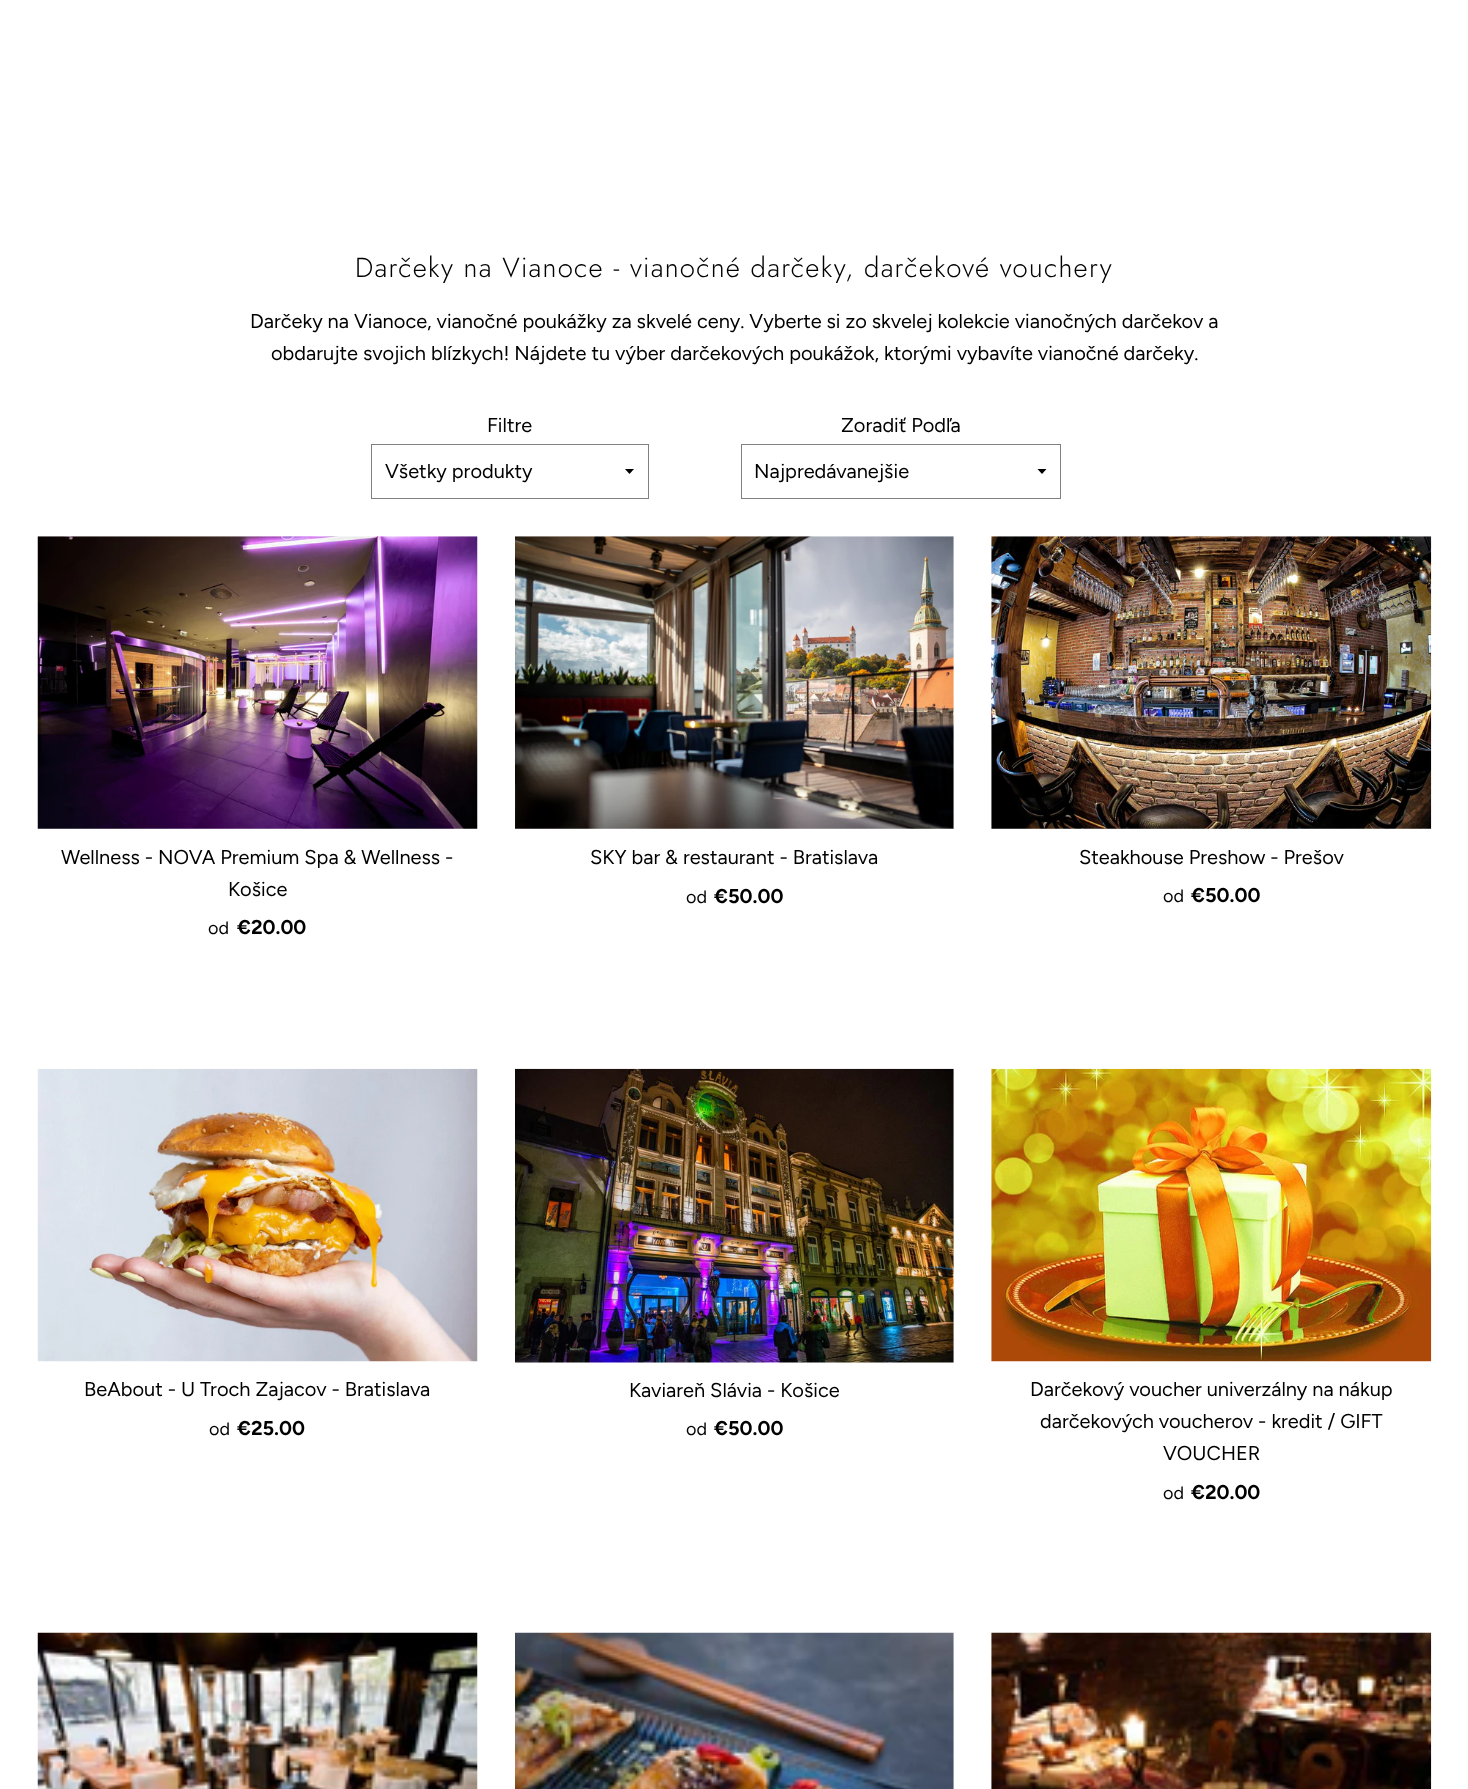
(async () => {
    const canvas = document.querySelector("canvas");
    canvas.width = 1468;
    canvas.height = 1789;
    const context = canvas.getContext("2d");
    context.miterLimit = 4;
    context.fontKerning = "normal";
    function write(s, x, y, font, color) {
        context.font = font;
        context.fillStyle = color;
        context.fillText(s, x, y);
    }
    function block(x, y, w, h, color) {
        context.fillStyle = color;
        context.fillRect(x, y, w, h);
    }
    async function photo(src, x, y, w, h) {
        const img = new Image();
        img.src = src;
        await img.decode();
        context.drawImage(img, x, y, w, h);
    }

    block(0, 0, 1468, 1789, "rgb(255, 255, 255)");
    context.letterSpacing = "1.25px";
    write("Darčeky na Vianoce - vianočné darčeky, darčekové vouchery", 355, 277, "300 27.5px Jost", "rgb(0, 0, 0)");
    context.letterSpacing = "0px";
    write("Darčeky na Vianoce, vianočné poukážky za skvelé ceny. Vyberte si zo skvelej kolekcie vianočných darčekov a", 250, 328, "20px Figtree", "rgb(0, 0, 0)");
    write("obdarujte svojich blízkych! Nájdete tu výber darčekových poukážok, ktorými vybavíte vianočné darčeky.", 271, 360, "20px Figtree", "rgb(0, 0, 0)");
    write("Filtre", 487, 432, "20px Figtree", "rgb(0, 0, 0)");
    context.beginPath();
    context.moveTo(625, 469);
    context.lineTo(629.5, 474);
    context.lineTo(634, 469);
    context.closePath();
    context.fill();
    context.strokeStyle = "rgb(128, 128, 128)";
    context.strokeRect(371.5, 444.5, 277, 54);
    write("Všetky produkty", 385, 478, "20px Figtree", "rgb(0, 0, 0)");
    write("Zoradiť Podľa", 841, 432, "20px Figtree", "rgb(0, 0, 0)");
    context.beginPath();
    context.moveTo(1037.5, 469);
    context.lineTo(1042, 474);
    context.lineTo(1046.5, 469);
    context.closePath();
    context.fill();
    context.strokeRect(741.5, 444.5, 319, 54);
    write("Najpredávanejšie", 754, 478, "20px Figtree", "rgb(0, 0, 0)");
    await photo("media/1.png", 37, 536, 441, 293);
    write("Wellness - NOVA Premium Spa & Wellness -", 61, 864, "20px Figtree", "rgb(0, 0, 0)");
    write("Košice", 228, 896, "20px Figtree", "rgb(0, 0, 0)");
    write("od", 208, 934, "18px Figtree", "rgb(0, 0, 0)");
    write("€20.00", 237, 934, "bold 20px Figtree", "rgb(0, 0, 0)");
    await photo("media/2.png", 515, 536, 439, 293);
    write("SKY bar & restaurant - Bratislava", 590, 864, "20px Figtree", "rgb(0, 0, 0)");
    write("od", 686, 903, "18px Figtree", "rgb(0, 0, 0)");
    write("€50.00", 714, 903, "bold 20px Figtree", "rgb(0, 0, 0)");
    await photo("media/3.png", 991, 536, 441, 293);
    write("Steakhouse Preshow - Prešov", 1079, 864, "20px Figtree", "rgb(0, 0, 0)");
    write("od", 1163, 902, "18px Figtree", "rgb(0, 0, 0)");
    write("€50.00", 1191, 902, "bold 20px Figtree", "rgb(0, 0, 0)");
    await photo("media/4.png", 37, 1068, 441, 294);
    write("BeAbout - U Troch Zajacov - Bratislava", 84, 1396, "20px Figtree", "rgb(0, 0, 0)");
    write("od", 209, 1435, "18px Figtree", "rgb(0, 0, 0)");
    write("€25.00", 237, 1435, "bold 20px Figtree", "rgb(0, 0, 0)");
    await photo("media/5.png", 515, 1068, 439, 295);
    write("Kaviareň Slávia - Košice", 629, 1397, "20px Figtree", "rgb(0, 0, 0)");
    write("od", 686, 1435, "18px Figtree", "rgb(0, 0, 0)");
    write("€50.00", 714, 1435, "bold 20px Figtree", "rgb(0, 0, 0)");
    await photo("media/6.png", 991, 1068, 441, 294);
    write("Darčekový voucher univerzálny na nákup", 1030, 1396, "20px Figtree", "rgb(0, 0, 0)");
    write("darčekových voucherov - kredit / GIFT", 1040, 1428, "20px Figtree", "rgb(0, 0, 0)");
    write("VOUCHER", 1163, 1460, "20px Figtree", "rgb(0, 0, 0)");
    write("od", 1163, 1499, "18px Figtree", "rgb(0, 0, 0)");
    write("€20.00", 1191, 1499, "bold 20px Figtree", "rgb(0, 0, 0)");
    await photo("media/7.png", 37, 1632, 441, 157);
    await photo("media/8.png", 515, 1632, 439, 157);
    await photo("media/9.png", 991, 1632, 441, 157);
})();
